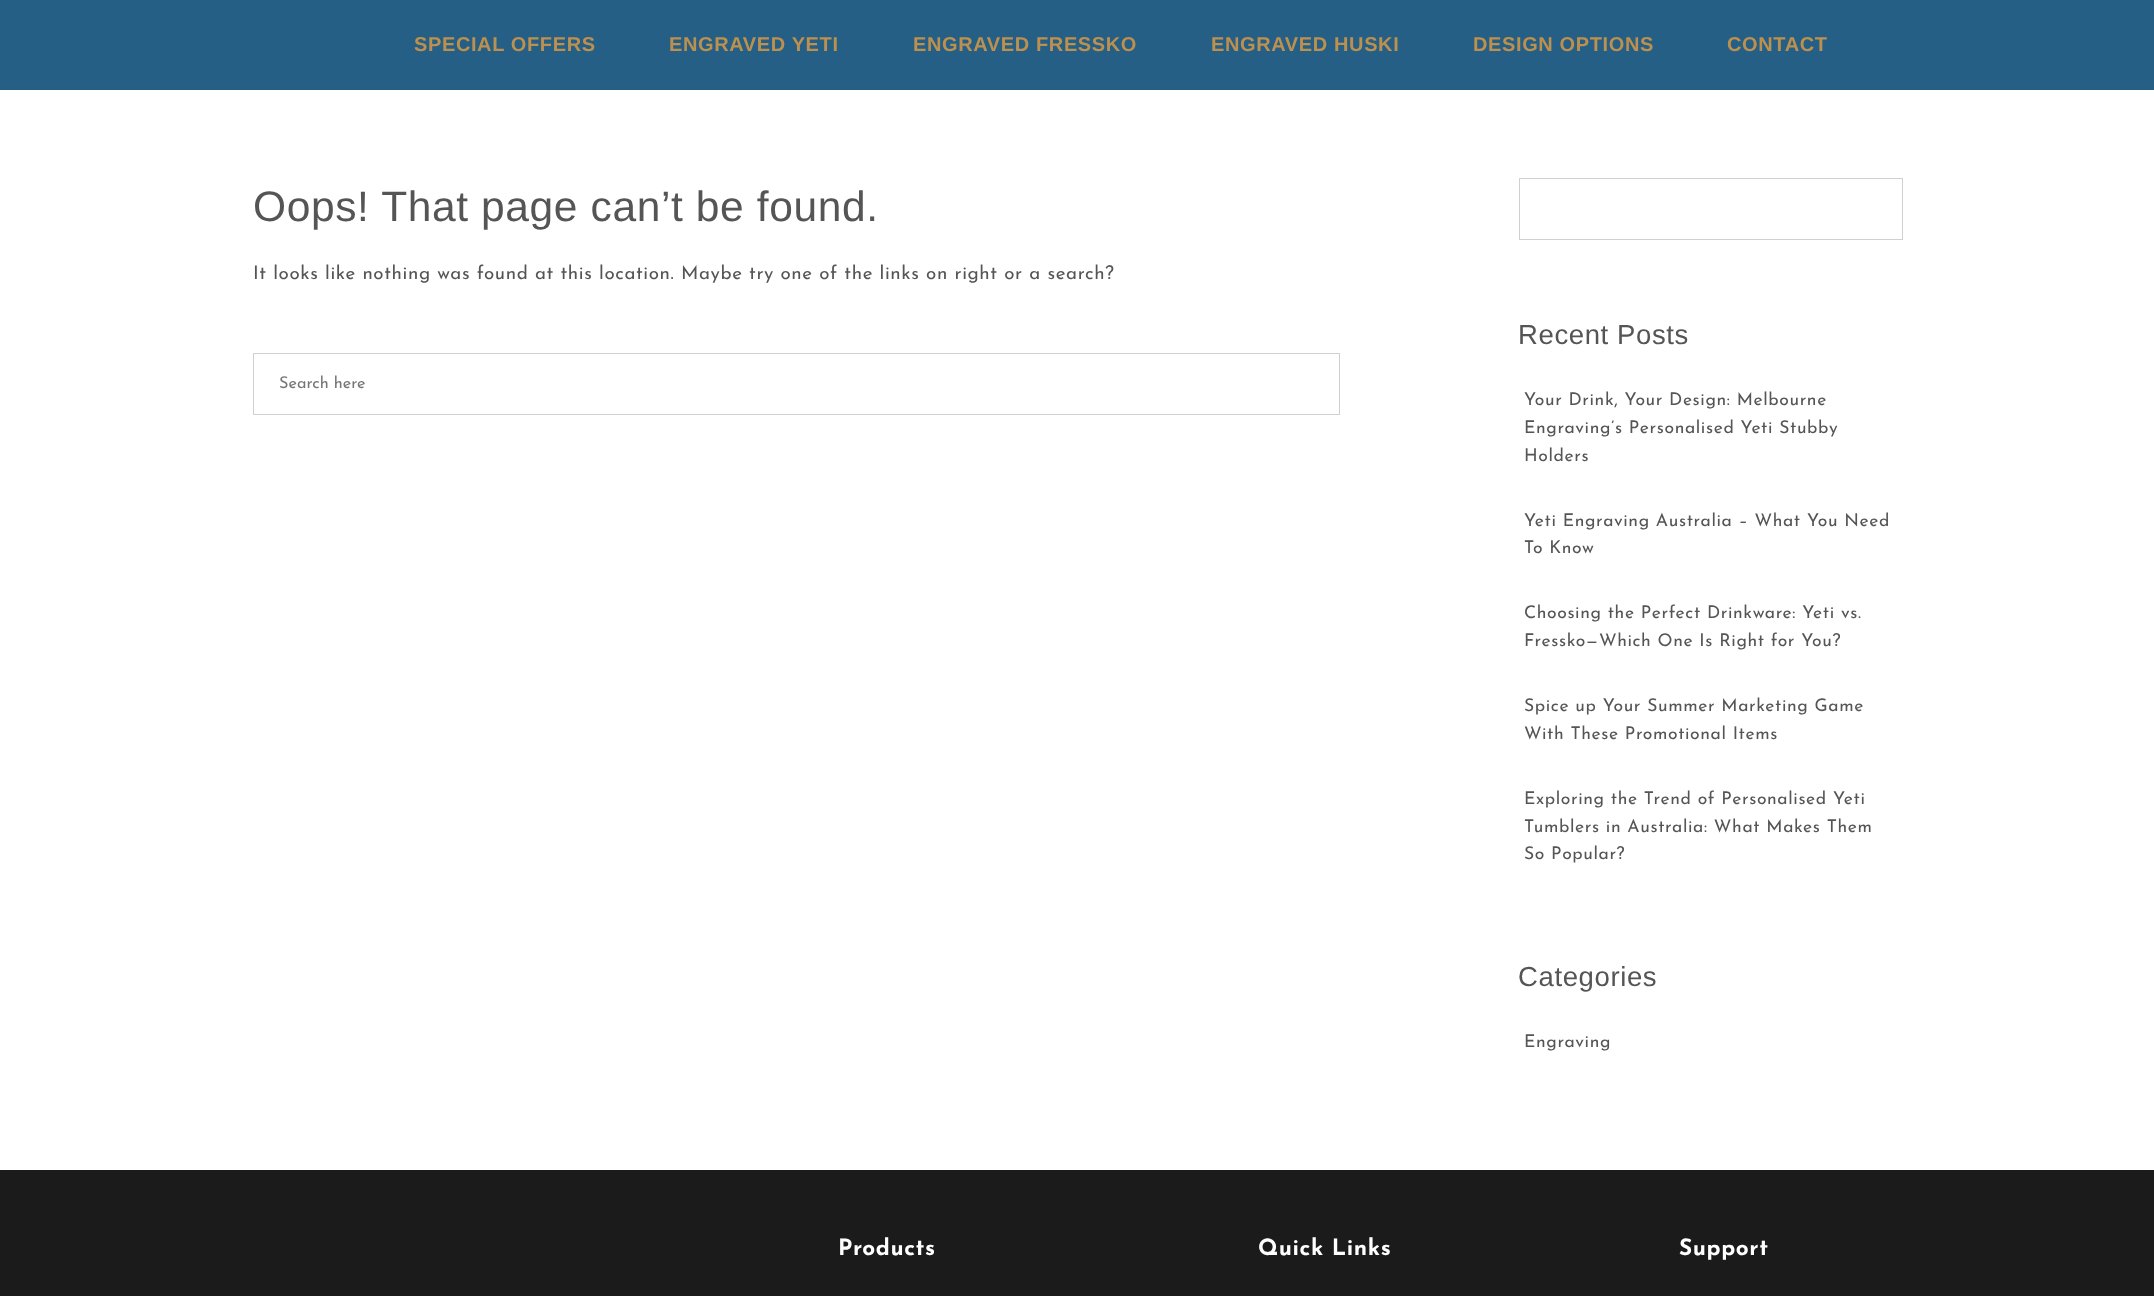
(async () => {
    const canvas = document.querySelector("canvas");
    canvas.width = 2154;
    canvas.height = 1296;
    const context = canvas.getContext("2d");
    context.miterLimit = 4;
    context.fontKerning = "normal";
    function write(s, x, y, font, color) {
        context.font = font;
        context.fillStyle = color;
        context.fillText(s, x, y);
    }
    function block(x, y, w, h, color) {
        context.fillStyle = color;
        context.fillRect(x, y, w, h);
    }

    block(0, 0, 2154, 1296, "rgb(255, 255, 255)");
    block(0, 0, 2154, 90, "rgb(37, 95, 133)");
    context.letterSpacing = "0.62px";
    write("SPECIAL OFFERS", 414, 51, "bold 20px Liberation Sans", "rgb(188, 144, 79)");
    write("ENGRAVED YETI", 669, 51, "bold 20px Liberation Sans", "rgb(188, 144, 79)");
    write("ENGRAVED FRESSKO", 913, 51, "bold 20px Liberation Sans", "rgb(188, 144, 79)");
    write("ENGRAVED HUSKI", 1211, 51, "bold 20px Liberation Sans", "rgb(188, 144, 79)");
    write("DESIGN OPTIONS", 1473, 51, "bold 20px Liberation Sans", "rgb(188, 144, 79)");
    write("CONTACT", 1727, 51, "bold 20px Liberation Sans", "rgb(188, 144, 79)");
    write("Oops! That page can’t be found.", 253, 221, "42.5px Liberation Sans", "rgb(85, 85, 85)");
    write("It looks like nothing was found at this location. Maybe try one of the links on right or a search?", 253, 279, "18.75px Josefin Sans", "rgb(85, 85, 85)");
    context.strokeStyle = "rgb(208, 208, 208)";
    context.strokeRect(253.5, 353.5, 1086, 61);
    context.letterSpacing = "0px";
    write("Search here", 279, 388, "16.25px Josefin Sans", "rgb(117, 117, 117)");
    context.strokeRect(1519.5, 178.5, 383, 61);
    context.letterSpacing = "0.62px";
    write("Recent Posts", 1518, 344, "27.5px Liberation Sans", "rgb(85, 85, 85)");
    write("Your Drink, Your Design: Melbourne", 1524, 405, "17.5px Josefin Sans", "rgb(85, 85, 85)");
    write("Engraving’s Personalised Yeti Stubby", 1524, 433, "17.5px Josefin Sans", "rgb(85, 85, 85)");
    write("Holders", 1524, 461, "17.5px Josefin Sans", "rgb(85, 85, 85)");
    write("Yeti Engraving Australia – What You Need", 1524, 526, "17.5px Josefin Sans", "rgb(85, 85, 85)");
    write("To Know", 1524, 553, "17.5px Josefin Sans", "rgb(85, 85, 85)");
    write("Choosing the Perfect Drinkware: Yeti vs.", 1524, 618, "17.5px Josefin Sans", "rgb(85, 85, 85)");
    write("Fressko—Which One Is Right for You?", 1524, 646, "17.5px Josefin Sans", "rgb(85, 85, 85)");
    write("Spice up Your Summer Marketing Game", 1524, 711, "17.5px Josefin Sans", "rgb(85, 85, 85)");
    write("With These Promotional Items", 1524, 739, "17.5px Josefin Sans", "rgb(85, 85, 85)");
    write("Exploring the Trend of Personalised Yeti", 1524, 804, "17.5px Josefin Sans", "rgb(85, 85, 85)");
    write("Tumblers in Australia: What Makes Them", 1524, 832, "17.5px Josefin Sans", "rgb(85, 85, 85)");
    write("So Popular?", 1524, 859, "17.5px Josefin Sans", "rgb(85, 85, 85)");
    write("Categories", 1518, 986, "27.5px Liberation Sans", "rgb(85, 85, 85)");
    write("Engraving", 1524, 1047, "17.5px Josefin Sans", "rgb(85, 85, 85)");
    block(0, 1170, 2154, 126, "rgb(27, 27, 27)");
    write("Products", 838, 1255, "bold 22.5px Josefin Sans", "rgb(255, 255, 255)");
    write("Quick Links", 1258, 1255, "bold 22.5px Josefin Sans", "rgb(255, 255, 255)");
    write("Support", 1679, 1255, "bold 22.5px Josefin Sans", "rgb(255, 255, 255)");
})();
